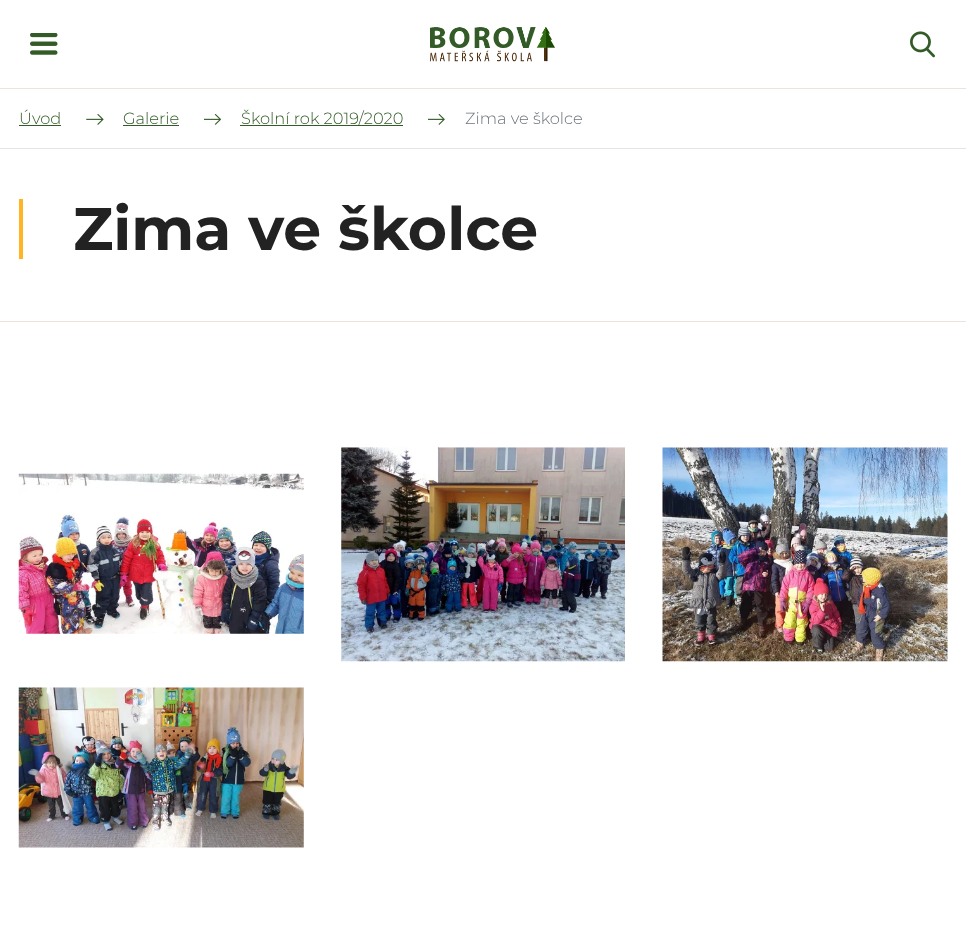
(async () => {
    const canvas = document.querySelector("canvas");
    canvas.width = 966;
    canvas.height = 931;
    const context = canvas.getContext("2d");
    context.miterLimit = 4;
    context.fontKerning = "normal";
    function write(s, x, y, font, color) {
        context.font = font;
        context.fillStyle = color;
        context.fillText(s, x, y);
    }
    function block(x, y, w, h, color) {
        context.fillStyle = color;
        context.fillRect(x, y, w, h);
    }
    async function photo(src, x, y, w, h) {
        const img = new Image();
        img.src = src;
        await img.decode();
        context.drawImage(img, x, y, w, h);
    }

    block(0, 0, 966, 931, "rgb(255, 255, 255)");
    await photo("media/1.png", 30, 33, 28, 22);
    await photo("media/2.png", 430, 27, 125, 35);
    await photo("media/3.png", 910, 31, 25, 27);
    block(0, 88, 966, 1, "rgb(233, 228, 224)");
    block(0, 148, 966, 1, "rgb(233, 228, 224)");
    write("Úvod", 19, 124, "300 16.25px Montserrat", "rgb(50, 91, 39)");
    block(19, 125, 42, 1, "rgb(50, 91, 39)");
    await photo("media/4.png", 86, 114, 18, 11);
    write("Galerie", 123, 124, "300 16.25px Montserrat", "rgb(50, 91, 39)");
    block(123, 125, 56, 1, "rgb(50, 91, 39)");
    await photo("media/5.png", 204, 114, 17, 11);
    block(240, 125, 163, 1, "rgb(50, 91, 39)");
    write("Školní rok 2019/2020", 241, 124, "300 16.25px Montserrat", "rgb(50, 91, 39)");
    await photo("media/6.png", 428, 114, 17, 11);
    write("Zima ve školce", 465, 124, "300 16.25px Montserrat", "rgb(108, 117, 125)");
    block(19, 199, 4, 60, "rgb(255, 180, 36)");
    write("Zima ve školce", 73, 250, "bold 60px Montserrat", "rgb(34, 34, 34)");
    block(0, 321, 966, 1, "rgb(233, 228, 224)");
    await photo("media/7.png", 18, 473, 286, 161);
    await photo("media/8.png", 341, 447, 284, 215);
    await photo("media/9.png", 662, 447, 286, 215);
    await photo("media/10.png", 18, 687, 286, 161);
})();
